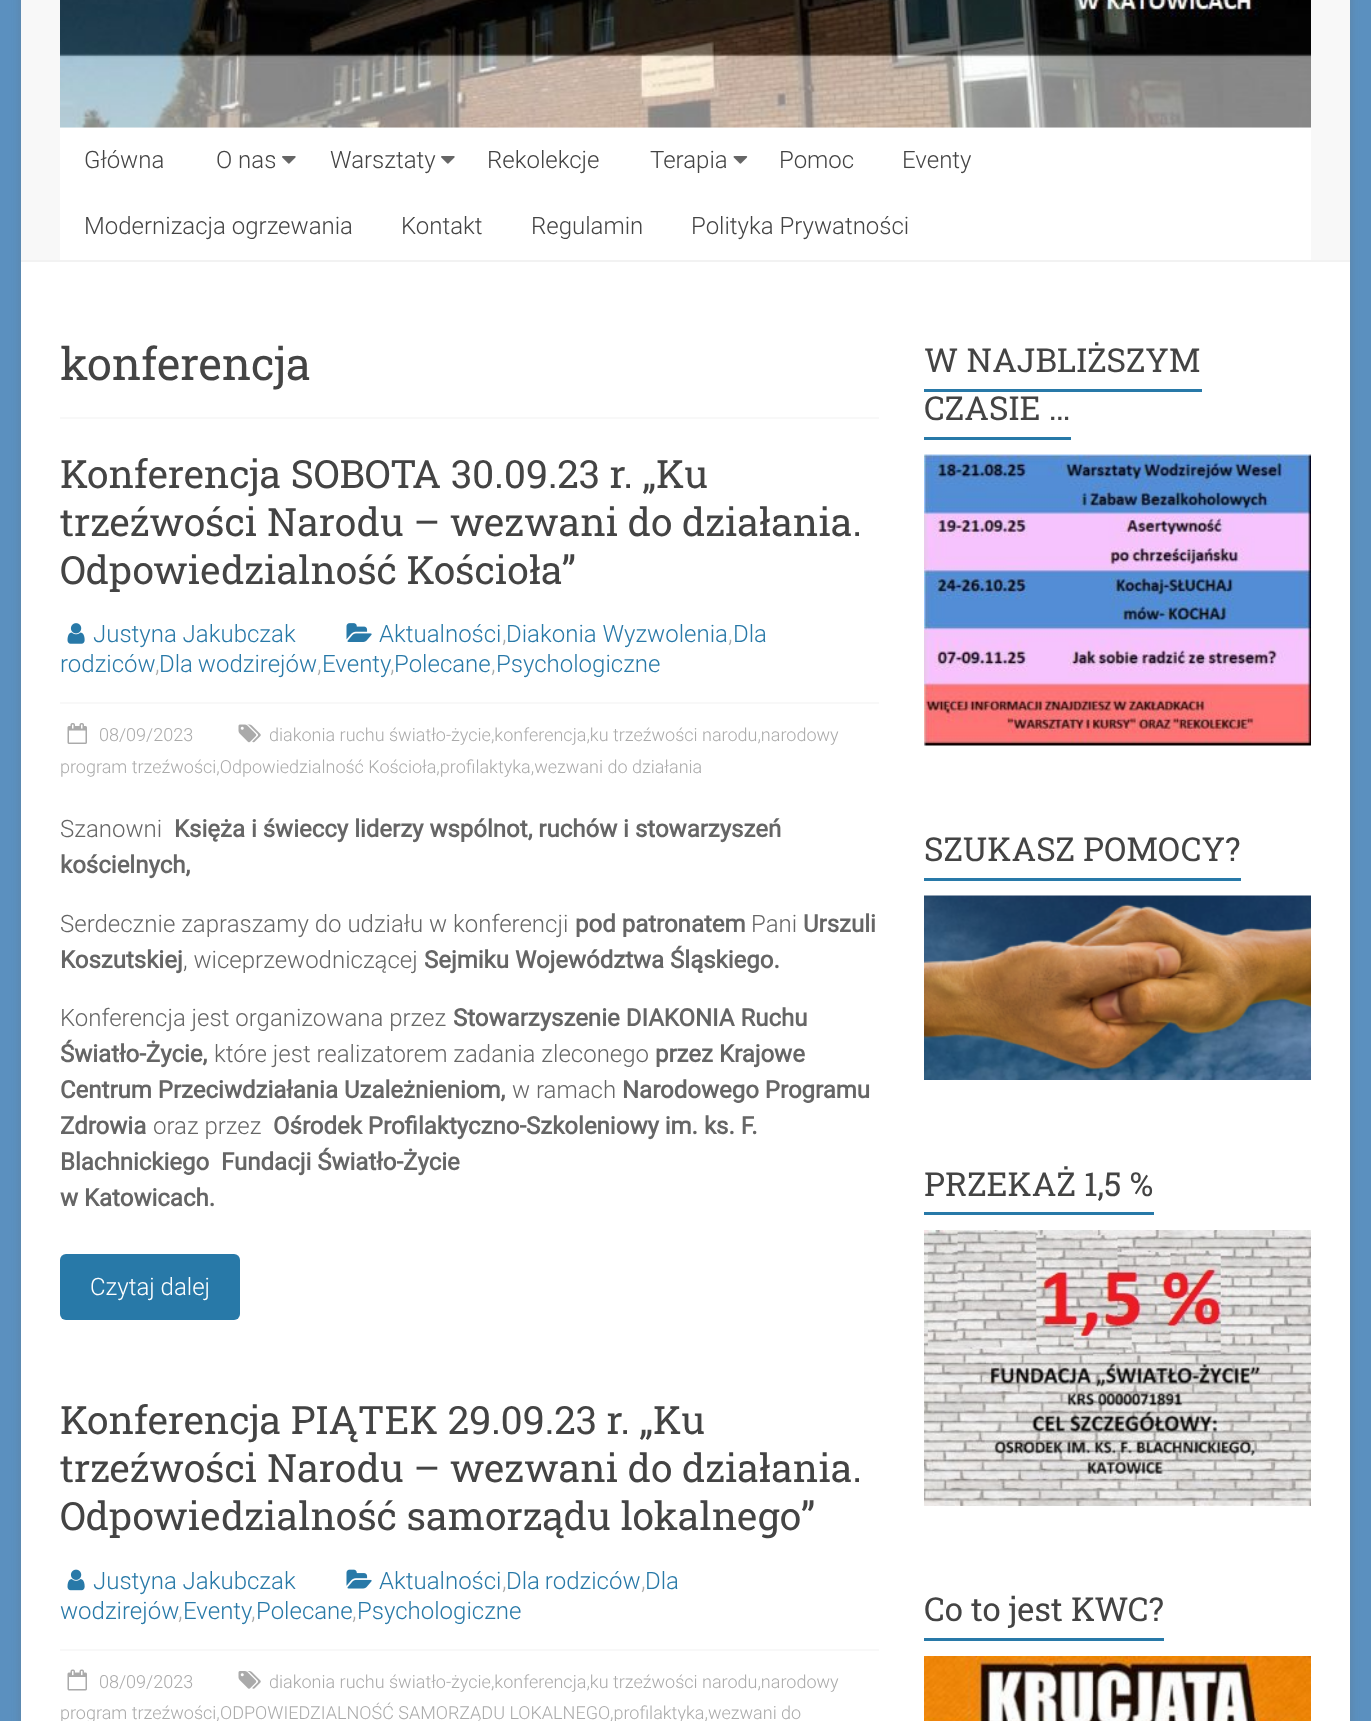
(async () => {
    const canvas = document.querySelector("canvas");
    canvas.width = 1371;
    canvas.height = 1721;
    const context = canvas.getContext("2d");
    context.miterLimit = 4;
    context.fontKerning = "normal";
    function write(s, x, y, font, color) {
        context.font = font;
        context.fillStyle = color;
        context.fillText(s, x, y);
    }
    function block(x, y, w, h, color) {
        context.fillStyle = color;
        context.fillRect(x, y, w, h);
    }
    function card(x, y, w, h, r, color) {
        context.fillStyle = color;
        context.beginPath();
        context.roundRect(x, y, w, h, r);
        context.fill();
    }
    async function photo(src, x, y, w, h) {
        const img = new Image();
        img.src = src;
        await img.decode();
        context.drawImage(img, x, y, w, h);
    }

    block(0, 0, 1371, 1721, "rgb(91, 144, 191)");
    context.fillStyle = "rgba(100, 100, 100, 0.3)";
    context.filter = "blur(4.5px)";
    context.beginPath();
    context.rect(21, -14, 1329, 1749);
    context.fill();
    context.filter = "none";
    block(21, 262, 1329, 1459, "rgb(255, 255, 255)");
    block(21, 0, 1329, 260, "rgb(248, 248, 248)");
    block(21, 260, 1329, 2, "rgb(242, 242, 242)");
    await photo("media/1.png", 60, 0, 1251, 128);
    block(60, 128, 1251, 132, "rgb(255, 255, 255)");
    write("Główna", 84, 168, "300 24px Roboto", "rgb(68, 68, 68)");
    write("O nas", 216, 168, "300 24px Roboto", "rgb(68, 68, 68)");
    await photo("media/2.png", 282, 156, 14, 8);
    write("Warsztaty", 330, 168, "300 24px Roboto", "rgb(68, 68, 68)");
    await photo("media/2.png", 441, 156, 14, 8);
    write("Rekolekcje", 487, 168, "300 24px Roboto", "rgb(68, 68, 68)");
    write("Terapia", 650, 168, "300 24px Roboto", "rgb(68, 68, 68)");
    await photo("media/3.png", 733, 156, 15, 8);
    write("Pomoc", 779, 168, "300 24px Roboto", "rgb(68, 68, 68)");
    write("Eventy", 902, 168, "300 24px Roboto", "rgb(68, 68, 68)");
    write("Modernizacja ogrzewania", 84, 234, "300 24px Roboto", "rgb(68, 68, 68)");
    write("Kontakt", 401, 234, "300 24px Roboto", "rgb(68, 68, 68)");
    write("Regulamin", 531, 234, "300 24px Roboto", "rgb(68, 68, 68)");
    write("Polityka Prywatności", 691, 234, "300 24px Roboto", "rgb(68, 68, 68)");
    block(60, 417, 819, 2, "rgb(248, 248, 248)");
    write("konferencja", 60, 380, "45px Roboto Slab", "rgb(68, 68, 68)");
    write("Konferencja SOBOTA 30.09.23 r. „Ku", 60, 488, "39px Roboto Slab", "rgb(68, 68, 68)");
    write("trzeźwości Narodu – wezwani do działania.", 60, 536, "39px Roboto Slab", "rgb(68, 68, 68)");
    write("Odpowiedzialność Kościoła”", 60, 584, "39px Roboto Slab", "rgb(68, 68, 68)");
    await photo("media/4.png", 346, 623, 26, 19);
    write("Aktualności", 379, 642, "300 24px Roboto", "rgb(40, 121, 168)");
    write(",", 502, 642, "300 24px Roboto", "rgb(170, 170, 170)");
    write("Diakonia Wyzwolenia", 506, 642, "300 24px Roboto", "rgb(40, 121, 168)");
    write(",", 728, 642, "300 24px Roboto", "rgb(170, 170, 170)");
    write("Dla", 733, 642, "300 24px Roboto", "rgb(40, 121, 168)");
    write("rodziców", 60, 672, "300 24px Roboto", "rgb(40, 121, 168)");
    write(",", 155, 672, "300 24px Roboto", "rgb(170, 170, 170)");
    context.wordSpacing = "-1px";
    write("Dla wodzirejów", 159, 672, "300 24px Roboto", "rgb(40, 121, 168)");
    context.wordSpacing = "0px";
    write(",", 317, 672, "300 24px Roboto", "rgb(170, 170, 170)");
    write("Eventy", 322, 672, "300 24px Roboto", "rgb(40, 121, 168)");
    write(",", 390, 672, "300 24px Roboto", "rgb(170, 170, 170)");
    write("Polecane", 394, 672, "300 24px Roboto", "rgb(40, 121, 168)");
    write(",", 491, 672, "300 24px Roboto", "rgb(170, 170, 170)");
    write("Psychologiczne", 496, 672, "300 24px Roboto", "rgb(40, 121, 168)");
    await photo("media/5.png", 67, 623, 18, 21);
    write("Justyna Jakubczak", 93, 642, "300 24px Roboto", "rgb(40, 121, 168)");
    block(60, 702, 819, 2, "rgb(248, 248, 248)");
    await photo("media/6.png", 238, 724, 23, 19);
    write("diakonia ruchu światło-życie,konferencja,ku trzeźwości narodu,narodowy", 269, 741, "300 18px Roboto", "rgb(170, 170, 170)");
    write("program trzeźwości,Odpowiedzialność Kościoła,profilaktyka,wezwani do działania", 60, 773, "300 18px Roboto", "rgb(170, 170, 170)");
    await photo("media/7.png", 67, 723, 20, 21);
    write("08/09/2023", 99, 741, "300 18px Roboto", "rgb(170, 170, 170)");
    write("Szanowni", 60, 837, "300 24px Roboto", "rgb(102, 102, 102)");
    write("Księża i świeccy liderzy wspólnot, ruchów i stowarzyszeń", 174, 837, "bold 24px Roboto", "rgb(102, 102, 102)");
    write("kościelnych,", 60, 873, "bold 24px Roboto", "rgb(102, 102, 102)");
    write("Serdecznie zapraszamy do udziału w konferencji", 60, 932, "300 24px Roboto", "rgb(102, 102, 102)");
    write("pod patronatem", 575, 932, "bold 24px Roboto", "rgb(102, 102, 102)");
    write("Pani", 751, 932, "300 24px Roboto", "rgb(102, 102, 102)");
    write("Urszuli", 803, 932, "bold 24px Roboto", "rgb(102, 102, 102)");
    write("Koszutskiej", 60, 968, "bold 24px Roboto", "rgb(102, 102, 102)");
    write(", wiceprzewodniczącej", 183, 968, "300 24px Roboto", "rgb(102, 102, 102)");
    write("Sejmiku Województwa Śląskiego.", 424, 968, "bold 24px Roboto", "rgb(102, 102, 102)");
    write("Konferencja jest organizowana przez", 60, 1026, "300 24px Roboto", "rgb(102, 102, 102)");
    write("Stowarzyszenie DIAKONIA Ruchu", 453, 1026, "bold 24px Roboto", "rgb(102, 102, 102)");
    write("Światło-Życie,", 60, 1062, "bold 24px Roboto", "rgb(102, 102, 102)");
    write("które jest realizatorem zadania zleconego", 214, 1062, "300 24px Roboto", "rgb(102, 102, 102)");
    write("przez Krajowe", 655, 1062, "bold 24px Roboto", "rgb(102, 102, 102)");
    write("Centrum Przeciwdziałania Uzależnieniom,", 60, 1098, "bold 24px Roboto", "rgb(102, 102, 102)");
    write("w ramach", 512, 1098, "300 24px Roboto", "rgb(102, 102, 102)");
    write("Narodowego Programu", 622, 1098, "bold 24px Roboto", "rgb(102, 102, 102)");
    write("Zdrowia", 60, 1134, "bold 24px Roboto", "rgb(102, 102, 102)");
    write("oraz przez", 153, 1134, "300 24px Roboto", "rgb(102, 102, 102)");
    write("Ośrodek Profilaktyczno-Szkoleniowy im. ks. F.", 273, 1134, "bold 24px Roboto", "rgb(102, 102, 102)");
    write("Blachnickiego  Fundacji Światło-Życie", 60, 1170, "bold 24px Roboto", "rgb(102, 102, 102)");
    write("w Katowicach.", 60, 1206, "bold 24px Roboto", "rgb(102, 102, 102)");
    card(60, 1254, 180, 66, 6, "rgb(40, 121, 168)");
    write("Czytaj dalej", 90, 1295, "300 24px Roboto", "rgb(255, 255, 255)");
    write("Konferencja PIĄTEK 29.09.23 r. „Ku", 60, 1434, "39px Roboto Slab", "rgb(68, 68, 68)");
    write("trzeźwości Narodu – wezwani do działania.", 60, 1482, "39px Roboto Slab", "rgb(68, 68, 68)");
    write("Odpowiedzialność samorządu lokalnego”", 60, 1530, "39px Roboto Slab", "rgb(68, 68, 68)");
    await photo("media/8.png", 346, 1569, 26, 20);
    write("Aktualności", 379, 1589, "300 24px Roboto", "rgb(40, 121, 168)");
    write(",", 502, 1589, "300 24px Roboto", "rgb(170, 170, 170)");
    context.wordSpacing = "-1px";
    write("Dla rodziców", 506, 1589, "300 24px Roboto", "rgb(40, 121, 168)");
    context.wordSpacing = "0px";
    write(",", 641, 1589, "300 24px Roboto", "rgb(170, 170, 170)");
    write("Dla", 645, 1589, "300 24px Roboto", "rgb(40, 121, 168)");
    write("wodzirejów", 60, 1619, "300 24px Roboto", "rgb(40, 121, 168)");
    write(",", 178, 1619, "300 24px Roboto", "rgb(170, 170, 170)");
    write("Eventy", 183, 1619, "300 24px Roboto", "rgb(40, 121, 168)");
    write(",", 251, 1619, "300 24px Roboto", "rgb(170, 170, 170)");
    write("Polecane", 256, 1619, "300 24px Roboto", "rgb(40, 121, 168)");
    write(",", 352, 1619, "300 24px Roboto", "rgb(170, 170, 170)");
    write("Psychologiczne", 357, 1619, "300 24px Roboto", "rgb(40, 121, 168)");
    await photo("media/9.png", 67, 1569, 18, 22);
    write("Justyna Jakubczak", 93, 1589, "300 24px Roboto", "rgb(40, 121, 168)");
    block(60, 1649, 819, 2, "rgb(248, 248, 248)");
    await photo("media/10.png", 238, 1671, 23, 18);
    write("diakonia ruchu światło-życie,konferencja,ku trzeźwości narodu,narodowy", 269, 1688, "300 18px Roboto", "rgb(170, 170, 170)");
    write("program trzeźwości,", 60, 1719, "300 18px Roboto", "rgb(170, 170, 170)");
    write("ODPOWIEDZIALNOŚĆ SAMORZĄDU LOKALNEGO", 220, 1719, "300 18px Roboto", "rgb(170, 170, 170)");
    write(",profilaktyka,wezwani do", 610, 1719, "300 18px Roboto", "rgb(170, 170, 170)");
    await photo("media/11.png", 67, 1669, 20, 22);
    write("08/09/2023", 99, 1688, "300 18px Roboto", "rgb(170, 170, 170)");
    write("W NAJBLIŻSZYM", 924, 372, "33px Roboto Slab", "rgb(68, 68, 68)");
    write("CZASIE …", 924, 420, "33px Roboto Slab", "rgb(68, 68, 68)");
    block(924, 389, 278, 3, "rgb(40, 121, 168)");
    block(924, 437, 147, 3, "rgb(40, 121, 168)");
    await photo("media/12.png", 924, 454, 387, 292);
    write("SZUKASZ POMOCY?", 924, 861, "33px Roboto Slab", "rgb(68, 68, 68)");
    block(924, 878, 317, 3, "rgb(40, 121, 168)");
    await photo("media/13.png", 924, 895, 387, 185);
    write("PRZEKAŻ 1,5 %", 924, 1196, "33px Roboto Slab", "rgb(68, 68, 68)");
    block(924, 1212, 230, 3, "rgb(40, 121, 168)");
    await photo("media/14.png", 924, 1230, 387, 276);
    write("Co to jest KWC?", 924, 1621, "33px Roboto Slab", "rgb(68, 68, 68)");
    block(924, 1638, 240, 3, "rgb(40, 121, 168)");
    await photo("media/15.png", 924, 1656, 387, 65);
})();
